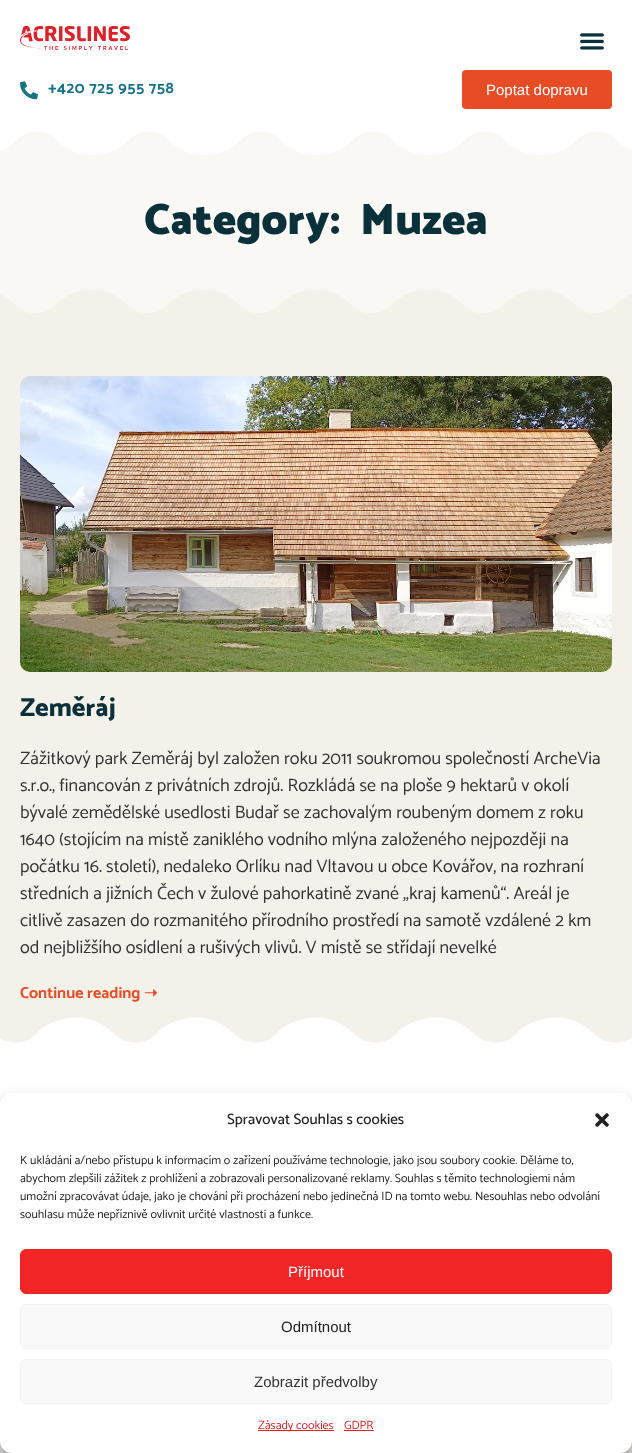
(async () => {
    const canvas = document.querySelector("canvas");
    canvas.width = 632;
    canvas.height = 1453;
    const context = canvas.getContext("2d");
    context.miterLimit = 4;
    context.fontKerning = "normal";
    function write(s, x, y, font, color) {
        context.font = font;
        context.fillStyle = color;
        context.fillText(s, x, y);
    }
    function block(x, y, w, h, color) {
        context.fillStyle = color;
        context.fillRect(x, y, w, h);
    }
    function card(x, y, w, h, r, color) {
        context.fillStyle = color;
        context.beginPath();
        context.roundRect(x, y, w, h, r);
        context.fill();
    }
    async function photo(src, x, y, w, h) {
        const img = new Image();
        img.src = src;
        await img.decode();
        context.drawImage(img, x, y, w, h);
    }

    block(0, 0, 632, 1453, "rgb(255, 255, 255)");
    await photo("media/1.png", 20, 26, 110, 24);
    await photo("media/2.png", 580, 33, 24, 17);
    await photo("media/3.png", 20, 81, 18, 19);
    context.letterSpacing = "0.5px";
    write("+420 725 955 758", 48, 93, "bold 16px Catamaran", "rgb(22, 114, 135)");
    card(462, 70, 150, 39, 4, "rgb(231, 76, 37)");
    context.letterSpacing = "0px";
    write("Poptat dopravu", 486, 95, "15px Liberation Sans", "rgb(255, 255, 255)");
    block(0, 131, 632, 183, "rgb(250, 248, 245)");
    await photo("media/4.png", 0, 128, 632, 27);
    write("Category:", 144, 234, "900 44px Catamaran", "rgb(10, 48, 58)");
    write("Muzea", 360, 234, "900 44px Catamaran", "rgb(10, 48, 58)");
    await photo("media/5.png", 0, 290, 632, 26);
    block(0, 316, 632, 727, "rgb(244, 241, 234)");
    await photo("media/6.png", 20, 376, 592, 296);
    write("Zeměráj", 20, 716, "800 26px Catamaran", "rgb(10, 48, 58)");
    write("Zážitkový park Zeměráj byl založen roku 2011 soukromou společností ArcheVia", 20, 764, "18px Catamaran", "rgb(51, 51, 51)");
    write("s.r.o., financován z privátních zdrojů. Rozkládá se na ploše 9 hektarů v okolí", 20, 791, "18px Catamaran", "rgb(51, 51, 51)");
    write("bývalé zemědělské usedlosti Budař se zachovalým roubeným domem z roku", 20, 818, "18px Catamaran", "rgb(51, 51, 51)");
    write("1640 (stojícím na místě zaniklého vodního mlýna založeného nejpozději na", 20, 845, "18px Catamaran", "rgb(51, 51, 51)");
    write("počátku 16. století), nedaleko Orlíku nad Vltavou u obce Kovářov, na rozhraní", 20, 872, "18px Catamaran", "rgb(51, 51, 51)");
    write("středních a jižních Čech v žulové pahorkatině zvané „kraj kamenů“. Areál je", 20, 899, "18px Catamaran", "rgb(51, 51, 51)");
    write("citlivě zasazen do rozmanitého přírodního prostředí na samotě vzdálené 2 km", 20, 926, "18px Catamaran", "rgb(51, 51, 51)");
    write("od nejbližšího osídlení a rušivých vlivů. V místě se střídají nevelké", 20, 953, "18px Catamaran", "rgb(51, 51, 51)");
    write("Continue reading", 20, 998, "bold 16px Catamaran", "rgb(231, 76, 37)");
    write("➝", 144, 998, "bold 16px DejaVu Sans", "rgb(231, 76, 37)");
    await photo("media/7.png", 0, 1017, 632, 29);
    block(0, 1441, 632, 12, "rgb(244, 241, 234)");
    context.fillStyle = "rgba(0, 0, 0, 0.23)";
    context.filter = "blur(3px)";
    context.beginPath();
    context.roundRect(0, 1099, 632, 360, 12);
    context.fill();
    context.filter = "none";
    context.fillStyle = "rgba(0, 0, 0, 0.19)";
    context.filter = "blur(10px)";
    context.beginPath();
    context.roundRect(0, 1103, 632, 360, 12);
    context.fill();
    context.filter = "none";
    card(0, 1093, 632, 360, 12, "rgb(255, 255, 255)");
    write("Spravovat Souhlas s cookies", 227, 1124, "500 15px Catamaran", "rgb(34, 34, 34)");
    await photo("media/8.png", 595, 1113, 14, 14);
    write("K ukládání a/nebo přístupu k informacím o zařízení používáme technologie, jako jsou soubory cookie. Děláme to,", 20, 1164, "12px Catamaran", "rgb(34, 34, 34)");
    write("abychom zlepšili zážitek z prohlížení a zobrazovali personalizované reklamy. Souhlas s těmito technologiemi nám", 20, 1182, "12px Catamaran", "rgb(34, 34, 34)");
    write("umožní zpracovávat údaje, jako je chování při procházení nebo jedinečná ID na tomto webu. Nesouhlas nebo odvolání", 20, 1200, "12px Catamaran", "rgb(34, 34, 34)");
    write("souhlasu může nepříznivě ovlivnit určité vlastnosti a funkce.", 20, 1218, "12px Catamaran", "rgb(34, 34, 34)");
    context.fillStyle = "rgb(242, 38, 38)";
    context.beginPath();
    context.roundRect(20.5, 1249.5, 591, 44, 5.5);
    context.fill();
    context.strokeStyle = "rgb(229, 36, 36)";
    context.stroke();
    write("Příjmout", 288, 1277, "15px Liberation Sans", "rgb(255, 255, 255)");
    context.fillStyle = "rgb(249, 249, 249)";
    context.beginPath();
    context.roundRect(20.5, 1304.5, 591, 44, 5.5);
    context.fill();
    context.strokeStyle = "rgb(242, 242, 242)";
    context.stroke();
    write("Odmítnout", 281, 1332, "15px Liberation Sans", "rgb(34, 34, 34)");
    context.fillStyle = "rgb(249, 249, 249)";
    context.beginPath();
    context.roundRect(20.5, 1359.5, 591, 44, 5.5);
    context.fill();
    context.stroke();
    write("Zobrazit předvolby", 254, 1387, "15px Liberation Sans", "rgb(51, 51, 51)");
    block(258, 1430, 76, 1, "rgb(221, 35, 35)");
    write("Zásady cookies", 258, 1429, "12px Catamaran", "rgb(221, 35, 35)");
    write("GDPR", 344, 1429, "12px Catamaran", "rgb(221, 35, 35)");
    block(344, 1430, 30, 1, "rgb(221, 35, 35)");
})();
